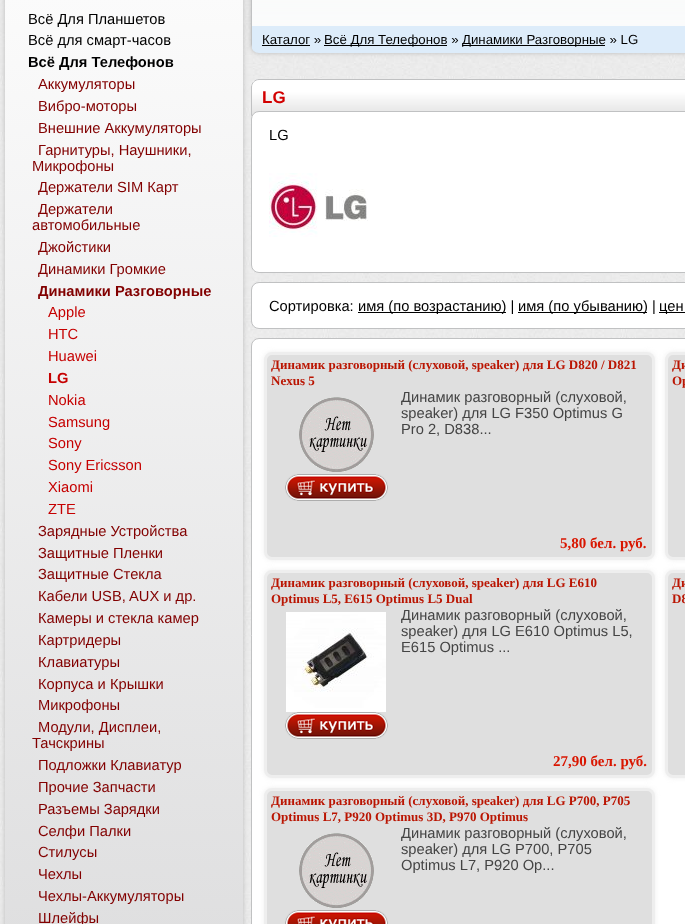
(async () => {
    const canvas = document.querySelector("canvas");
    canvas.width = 685;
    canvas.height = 924;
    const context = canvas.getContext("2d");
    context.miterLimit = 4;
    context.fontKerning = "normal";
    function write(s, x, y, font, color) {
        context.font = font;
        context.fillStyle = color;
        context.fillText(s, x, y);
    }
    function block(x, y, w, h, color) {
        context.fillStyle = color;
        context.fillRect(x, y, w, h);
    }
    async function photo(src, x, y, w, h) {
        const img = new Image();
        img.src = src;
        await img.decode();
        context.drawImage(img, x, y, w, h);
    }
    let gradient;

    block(0, 0, 685, 924, "rgb(255, 255, 255)");
    await photo("media/1.png", 0, 0, 685, 924);
    context.fillStyle = "rgb(187, 187, 187)";
    context.filter = "blur(2.5px)";
    context.beginPath();
    context.roundRect(5, -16, 238, 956, 8);
    context.fill();
    context.filter = "none";
    gradient = context.createLinearGradient(124, -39, 124, 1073);
    gradient.addColorStop(0, "rgb(252, 252, 252)");
    gradient.addColorStop(1, "rgb(219, 219, 220)");
    context.fillStyle = gradient;
    context.fillRect(5, 0, 238, 924);
    write("Всё Для Планшетов", 28, 24, "14.7px Liberation Sans", "rgb(0, 0, 0)");
    write("Всё для смарт-часов", 28, 45, "14.7px Liberation Sans", "rgb(0, 0, 0)");
    write("Всё Для Телефонов", 28, 67, "bold 14.7px Liberation Sans", "rgb(0, 0, 0)");
    write("Аккумуляторы", 38, 89, "14.7px Liberation Sans", "rgb(130, 0, 0)");
    write("Вибро-моторы", 38, 111, "14.7px Liberation Sans", "rgb(130, 0, 0)");
    write("Внешние Аккумуляторы", 38, 133, "14.7px Liberation Sans", "rgb(130, 0, 0)");
    write("Гарнитуры, Наушники,", 38, 155, "14.7px Liberation Sans", "rgb(130, 0, 0)");
    write("Микрофоны", 32, 171, "14.7px Liberation Sans", "rgb(130, 0, 0)");
    write("Держатели SIM Карт", 38, 192, "14.7px Liberation Sans", "rgb(130, 0, 0)");
    write("Держатели", 38, 214, "14.7px Liberation Sans", "rgb(130, 0, 0)");
    write("автомобильные", 32, 230, "14.7px Liberation Sans", "rgb(130, 0, 0)");
    write("Джойстики", 38, 252, "14.7px Liberation Sans", "rgb(130, 0, 0)");
    write("Динамики Громкие", 38, 274, "14.7px Liberation Sans", "rgb(130, 0, 0)");
    write("Динамики Разговорные", 38, 296, "bold 14.7px Liberation Sans", "rgb(130, 0, 0)");
    write("Apple", 48, 317, "14.7px Liberation Sans", "rgb(198, 0, 0)");
    write("HTC", 48, 339, "14.7px Liberation Sans", "rgb(198, 0, 0)");
    write("Huawei", 48, 361, "14.7px Liberation Sans", "rgb(198, 0, 0)");
    write("LG", 48, 383, "bold 14.7px Liberation Sans", "rgb(198, 0, 0)");
    write("Nokia", 48, 405, "14.7px Liberation Sans", "rgb(198, 0, 0)");
    write("Samsung", 48, 427, "14.7px Liberation Sans", "rgb(198, 0, 0)");
    write("Sony", 48, 448, "14.7px Liberation Sans", "rgb(198, 0, 0)");
    write("Sony Ericsson", 48, 470, "14.7px Liberation Sans", "rgb(198, 0, 0)");
    write("Xiaomi", 48, 492, "14.7px Liberation Sans", "rgb(198, 0, 0)");
    write("ZTE", 48, 514, "14.7px Liberation Sans", "rgb(198, 0, 0)");
    write("Зарядные Устройства", 38, 536, "14.7px Liberation Sans", "rgb(130, 0, 0)");
    write("Защитные Пленки", 38, 558, "14.7px Liberation Sans", "rgb(130, 0, 0)");
    write("Защитные Стекла", 38, 579, "14.7px Liberation Sans", "rgb(130, 0, 0)");
    write("Кабели USB, AUX и др.", 38, 601, "14.7px Liberation Sans", "rgb(130, 0, 0)");
    write("Камеры и стекла камер", 38, 623, "14.7px Liberation Sans", "rgb(130, 0, 0)");
    write("Картридеры", 38, 645, "14.7px Liberation Sans", "rgb(130, 0, 0)");
    write("Клавиатуры", 38, 667, "14.7px Liberation Sans", "rgb(130, 0, 0)");
    write("Корпуса и Крышки", 38, 689, "14.7px Liberation Sans", "rgb(130, 0, 0)");
    write("Микрофоны", 38, 710, "14.7px Liberation Sans", "rgb(130, 0, 0)");
    write("Модули, Дисплеи,", 38, 732, "14.7px Liberation Sans", "rgb(130, 0, 0)");
    write("Тачскрины", 32, 748, "14.7px Liberation Sans", "rgb(130, 0, 0)");
    write("Подложки Клавиатур", 38, 770, "14.7px Liberation Sans", "rgb(130, 0, 0)");
    write("Прочие Запчасти", 38, 792, "14.7px Liberation Sans", "rgb(130, 0, 0)");
    write("Разъемы Зарядки", 38, 814, "14.7px Liberation Sans", "rgb(130, 0, 0)");
    write("Селфи Палки", 38, 836, "14.7px Liberation Sans", "rgb(130, 0, 0)");
    write("Стилусы", 38, 857, "14.7px Liberation Sans", "rgb(130, 0, 0)");
    write("Чехлы", 38, 879, "14.7px Liberation Sans", "rgb(130, 0, 0)");
    write("Чехлы-Аккумуляторы", 38, 901, "14.7px Liberation Sans", "rgb(130, 0, 0)");
    write("Шлейфы", 38, 923, "14.7px Liberation Sans", "rgb(130, 0, 0)");
    context.fillStyle = "rgb(187, 187, 187)";
    context.filter = "blur(2.5px)";
    context.beginPath();
    context.roundRect(251, -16, 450, 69, 8);
    context.fill();
    context.filter = "none";
    await photo("media/2.png", 251, 0, 434, 51);
    context.fillStyle = "rgb(192, 193, 194)";
    context.beginPath();
    context.moveTo(251, -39);
    context.lineTo(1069, -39);
    context.lineTo(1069, 44);
    context.bezierCurveTo(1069, 48, 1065, 52, 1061, 52);
    context.lineTo(259, 52);
    context.bezierCurveTo(255, 52, 251, 48, 251, 44);
    context.closePath();
    context.moveTo(252, -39);
    context.lineTo(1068, -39);
    context.lineTo(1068, 44);
    context.bezierCurveTo(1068, 48, 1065, 51, 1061, 51);
    context.lineTo(259, 51);
    context.bezierCurveTo(255, 51, 252, 48, 252, 44);
    context.closePath();
    context.fill("evenodd");
    context.save();
    context.beginPath();
    context.roundRect(251, -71, 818, 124, 8);
    context.clip();
    context.fillStyle = "rgb(221, 236, 250)";
    context.beginPath();
    context.moveTo(252, 26);
    context.lineTo(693, 26);
    context.lineTo(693, 45);
    context.bezierCurveTo(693, 49.5, 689.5, 53, 685, 53);
    context.lineTo(252, 53);
    context.closePath();
    context.fill();
    context.restore();
    write("Каталог »", 262, 44, "13.25px Liberation Sans", "rgb(0, 0, 0)");
    block(262, 45, 48, 1, "rgb(0, 0, 0)");
    block(324, 45, 123, 1, "rgb(0, 0, 0)");
    write("Всё Для Телефонов »", 324, 44, "13.25px Liberation Sans", "rgb(0, 0, 0)");
    block(462, 45, 143, 1, "rgb(0, 0, 0)");
    write("Динамики Разговорные » LG", 462, 44, "13.25px Liberation Sans", "rgb(0, 0, 0)");
    await photo("media/3.png", 251, 79, 434, 36);
    context.beginPath();
    context.moveTo(259, 79.5);
    context.lineTo(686, 79.5);
    context.bezierCurveTo(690, 79.5, 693.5, 83, 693.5, 87);
    context.lineTo(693.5, 115.5);
    context.lineTo(251.5, 115.5);
    context.lineTo(251.5, 87);
    context.bezierCurveTo(251.5, 83, 255, 79.5, 259, 79.5);
    context.closePath();
    context.strokeStyle = "rgb(192, 193, 194)";
    context.stroke();
    write("LG", 262, 103, "bold 17px Liberation Sans", "rgb(210, 0, 0)");
    context.fillStyle = "rgb(255, 255, 255)";
    context.beginPath();
    context.roundRect(251.5, 111.5, 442, 161, 7.5);
    context.fill();
    context.stroke();
    write("LG", 269, 140, "14.7px Liberation Sans", "rgb(0, 0, 0)");
    await photo("media/4.png", 269, 173, 99, 64);
    context.fillStyle = "rgb(255, 255, 255)";
    context.beginPath();
    context.roundRect(251.5, 282.5, 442, 46, 7.5);
    context.fill();
    context.stroke();
    write("Сортировка:", 269, 311, "14.7px Liberation Sans", "rgb(0, 0, 0)");
    block(358, 312, 148, 1, "rgb(0, 0, 0)");
    write("имя (по возрастанию) |", 358, 311, "14.7px Liberation Sans", "rgb(0, 0, 0)");
    block(518, 312, 129, 1, "rgb(0, 0, 0)");
    write("имя (по убыванию) |", 518, 311, "14.7px Liberation Sans", "rgb(0, 0, 0)");
    block(659, 312, 26, 1, "rgb(0, 0, 0)");
    write("цен", 659, 311, "14.7px Liberation Sans", "rgb(0, 0, 0)");
    context.fillStyle = "rgb(255, 255, 255)";
    context.beginPath();
    context.roundRect(251.5, 338.5, 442, 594, 7.5);
    context.fill();
    context.stroke();
    context.fillStyle = "rgb(238, 238, 238)";
    context.filter = "blur(2.5px)";
    context.beginPath();
    context.roundRect(264, 352, 391, 208, 8);
    context.fill();
    context.filter = "none";
    context.fillStyle = "rgb(223, 223, 223)";
    context.beginPath();
    context.roundRect(265.5, 353.5, 388, 205, 6.5);
    context.fill();
    context.strokeStyle = "rgb(238, 238, 238)";
    context.lineWidth = 3;
    context.stroke();
    write("Динамик разговорный (слуховой, speaker) для LG D820 / D821", 271, 369, "bold 13px Liberation Serif", "rgb(186, 21, 2)");
    write("Nexus 5", 271, 385, "bold 13px Liberation Serif", "rgb(186, 21, 2)");
    await photo("media/5.png", 299, 397, 75, 75);
    await photo("media/6.png", 285, 474, 103, 27);
    write("Динамик разговорный (слуховой,", 401, 402, "14.7px Liberation Sans", "rgb(68, 68, 68)");
    write("speaker) для LG F350 Optimus G", 401, 418, "14.7px Liberation Sans", "rgb(68, 68, 68)");
    write("Pro 2, D838...", 401, 434, "14.7px Liberation Sans", "rgb(68, 68, 68)");
    write("5,80 бел. руб.", 560, 548, "bold 15px Liberation Serif", "rgb(217, 22, 0)");
    context.fillStyle = "rgb(238, 238, 238)";
    context.filter = "blur(2.5px)";
    context.beginPath();
    context.roundRect(665, 352, 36, 208, 8);
    context.fill();
    context.filter = "none";
    context.fillStyle = "rgb(223, 223, 223)";
    context.beginPath();
    context.roundRect(666.5, 353.5, 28, 205, 6.5);
    context.fill();
    context.stroke();
    write("Ди", 672, 369, "bold 13px Liberation Serif", "rgb(186, 21, 2)");
    write("Op", 672, 385, "bold 13px Liberation Serif", "rgb(186, 21, 2)");
    context.fillStyle = "rgb(238, 238, 238)";
    context.filter = "blur(2.5px)";
    context.beginPath();
    context.roundRect(264, 570, 391, 208, 8);
    context.fill();
    context.filter = "none";
    context.fillStyle = "rgb(223, 223, 223)";
    context.beginPath();
    context.roundRect(265.5, 571.5, 388, 205, 6.5);
    context.fill();
    context.stroke();
    write("Динамик разговорный (слуховой, speaker) для LG E610", 271, 587, "bold 13px Liberation Serif", "rgb(186, 21, 2)");
    write("Optimus L5, E615 Optimus L5 Dual", 271, 603, "bold 13px Liberation Serif", "rgb(186, 21, 2)");
    await photo("media/7.png", 286, 612, 100, 100);
    await photo("media/6.png", 285, 712, 103, 27);
    write("Динамик разговорный (слуховой,", 401, 620, "14.7px Liberation Sans", "rgb(68, 68, 68)");
    write("speaker) для LG E610 Optimus L5,", 401, 636, "14.7px Liberation Sans", "rgb(68, 68, 68)");
    write("E615 Optimus ...", 401, 652, "14.7px Liberation Sans", "rgb(68, 68, 68)");
    write("27,90 бел. руб.", 553, 766, "bold 15px Liberation Serif", "rgb(217, 22, 0)");
    context.fillStyle = "rgb(238, 238, 238)";
    context.filter = "blur(2.5px)";
    context.beginPath();
    context.roundRect(665, 570, 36, 208, 8);
    context.fill();
    context.filter = "none";
    context.fillStyle = "rgb(223, 223, 223)";
    context.beginPath();
    context.roundRect(666.5, 571.5, 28, 205, 6.5);
    context.fill();
    context.stroke();
    write("Ди", 672, 587, "bold 13px Liberation Serif", "rgb(186, 21, 2)");
    write("D8", 672, 603, "bold 13px Liberation Serif", "rgb(186, 21, 2)");
    context.fillStyle = "rgb(238, 238, 238)";
    context.filter = "blur(2.5px)";
    context.beginPath();
    context.roundRect(264, 788, 391, 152, 8);
    context.fill();
    context.filter = "none";
    context.fillStyle = "rgb(223, 223, 223)";
    context.beginPath();
    context.roundRect(265.5, 789.5, 388, 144, 6.5);
    context.fill();
    context.stroke();
    write("Динамик разговорный (слуховой, speaker) для LG P700, P705", 271, 805, "bold 13px Liberation Serif", "rgb(186, 21, 2)");
    write("Optimus L7, P920 Optimus 3D, P970 Optimus", 271, 821, "bold 13px Liberation Serif", "rgb(186, 21, 2)");
    await photo("media/5.png", 299, 833, 75, 75);
    await photo("media/8.png", 285, 910, 103, 14);
    write("Динамик разговорный (слуховой,", 401, 838, "14.7px Liberation Sans", "rgb(68, 68, 68)");
    write("speaker) для LG P700, P705", 401, 854, "14.7px Liberation Sans", "rgb(68, 68, 68)");
    write("Optimus L7, P920 Op...", 401, 870, "14.7px Liberation Sans", "rgb(68, 68, 68)");
})();
